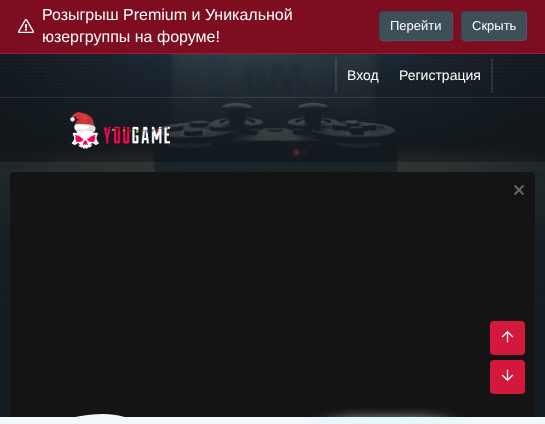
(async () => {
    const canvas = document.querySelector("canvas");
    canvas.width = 545;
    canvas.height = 424;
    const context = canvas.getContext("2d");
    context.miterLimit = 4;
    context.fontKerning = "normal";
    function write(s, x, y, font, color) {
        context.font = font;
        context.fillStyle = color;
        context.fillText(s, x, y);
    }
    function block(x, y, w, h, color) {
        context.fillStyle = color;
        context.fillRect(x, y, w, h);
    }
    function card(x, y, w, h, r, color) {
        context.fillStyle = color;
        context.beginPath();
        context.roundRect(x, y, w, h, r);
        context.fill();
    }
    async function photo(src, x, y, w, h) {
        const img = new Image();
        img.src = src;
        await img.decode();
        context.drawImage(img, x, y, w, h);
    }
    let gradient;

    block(0, 0, 545, 424, "rgb(21, 29, 32)");
    block(0, 0, 545, 53, "rgb(127, 13, 34)");
    block(0, 53, 545, 1, "rgb(140, 37, 56)");
    write("Розыгрыш Premium и Уникальной", 42, 20, "16px Liberation Sans", "rgb(255, 255, 255)");
    await photo("media/1.png", 18, 19, 16, 14);
    card(379, 11, 74, 30, 4, "rgb(63, 79, 90)");
    context.beginPath();
    context.moveTo(451.5, 12.5);
    context.bezierCurveTo(453.5, 14.5, 452.5, 23, 452.5, 26);
    context.bezierCurveTo(452.5, 42.5, 455, 40.5, 438, 40.5);
    context.lineTo(394, 40.5);
    context.bezierCurveTo(393.5, 40.5, 383, 42, 380.5, 39.5);
    context.strokeStyle = "rgb(74, 92, 105)";
    context.stroke();
    context.beginPath();
    context.moveTo(380.5, 39.5);
    context.bezierCurveTo(378.5, 37.5, 379.5, 29, 379.5, 26);
    context.bezierCurveTo(379.5, 9.5, 377, 11.5, 394, 11.5);
    context.lineTo(438, 11.5);
    context.bezierCurveTo(438.5, 11.5, 449, 10, 451.5, 12.5);
    context.strokeStyle = "rgb(53, 66, 75)";
    context.stroke();
    write("Перейти", 390, 30, "13px Liberation Sans", "rgb(255, 255, 255)");
    card(461, 11, 66, 30, 4, "rgb(63, 79, 90)");
    context.beginPath();
    context.moveTo(525.5, 12.5);
    context.bezierCurveTo(527.5, 14.5, 526.5, 23, 526.5, 26);
    context.bezierCurveTo(526.5, 42, 529, 40.5, 513.5, 40.5);
    context.lineTo(474.5, 40.5);
    context.bezierCurveTo(474.5, 40.5, 465, 42, 462.5, 39.5);
    context.strokeStyle = "rgb(74, 92, 105)";
    context.stroke();
    context.beginPath();
    context.moveTo(462.5, 39.5);
    context.bezierCurveTo(460.5, 37.5, 461.5, 29, 461.5, 26);
    context.bezierCurveTo(461.5, 10, 459, 11.5, 474.5, 11.5);
    context.lineTo(513.5, 11.5);
    context.bezierCurveTo(513.5, 11.5, 523, 10, 525.5, 12.5);
    context.strokeStyle = "rgb(53, 66, 75)";
    context.stroke();
    write("Скрыть", 472, 30, "13px Liberation Sans", "rgb(255, 255, 255)");
    write("юзергруппы на форуме!", 42, 42, "16px Liberation Sans", "rgb(255, 255, 255)");
    await photo("media/4.png", 0, 54, 545, 244);
    await photo("media/5.png", 0, 54, 545, 244);
    gradient = context.createLinearGradient(273, 0, 273, 300);
    gradient.addColorStop(0, "rgba(21, 29, 32, 0)");
    gradient.addColorStop(1, "rgb(21, 29, 32)");
    context.fillStyle = gradient;
    context.fillRect(0, 54, 545, 242);
    block(0, 54, 545, 44, "rgba(0, 0, 0, 0.3)");
    block(0, 97, 545, 1, "rgba(255, 255, 255, 0.1)");
    block(491, 58, 2, 35, "rgba(255, 255, 255, 0.1)");
    block(335, 58, 2, 35, "rgba(255, 255, 255, 0.1)");
    write("Вход", 347, 80, "14px Liberation Sans", "rgb(255, 255, 255)");
    write("Регистрация", 399, 80, "14px Liberation Sans", "rgb(255, 255, 255)");
    block(0, 98, 545, 64, "rgba(0, 0, 0, 0.3)");
    await photo("media/2.png", 70, 112, 100, 37);
    card(10, 172, 525, 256, 4, "rgb(20, 20, 20)");
    await photo("media/3.png", 514, 185, 10, 10);
    card(490, 321, 35, 34, 4, "rgb(212, 24, 59)");
    await photo("media/6.png", 501, 330, 13, 13);
    card(490, 360, 35, 34, 4, "rgb(212, 24, 59)");
    await photo("media/7.png", 501, 369, 13, 13);
    block(0, 417, 545, 7, "rgb(241, 249, 252)");
    context.beginPath();
    context.moveTo(103, 414);
    context.bezierCurveTo(141, 414, 172, 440, 172, 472);
    context.lineTo(172, 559);
    context.lineTo(0, 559);
    context.lineTo(0, 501);
    context.bezierCurveTo(0, 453, 46, 414, 103, 414);
    context.closePath();
    context.fill();
    context.fillStyle = "rgb(197, 242, 237)";
    context.filter = "blur(10px)";
    context.beginPath();
    context.roundRect(313, 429, 172, 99, 74);
    context.fill();
    context.filter = "none";
    context.fillStyle = "rgb(200, 235, 248)";
    context.filter = "blur(10px)";
    context.beginPath();
    context.roundRect(293, 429, 172, 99, 74);
    context.fill();
    context.filter = "none";
    context.fillStyle = "rgb(255, 255, 255)";
    context.filter = "blur(10px)";
    context.beginPath();
    context.roundRect(303, 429, 172, 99, 74);
    context.fill();
    context.filter = "none";
})();
